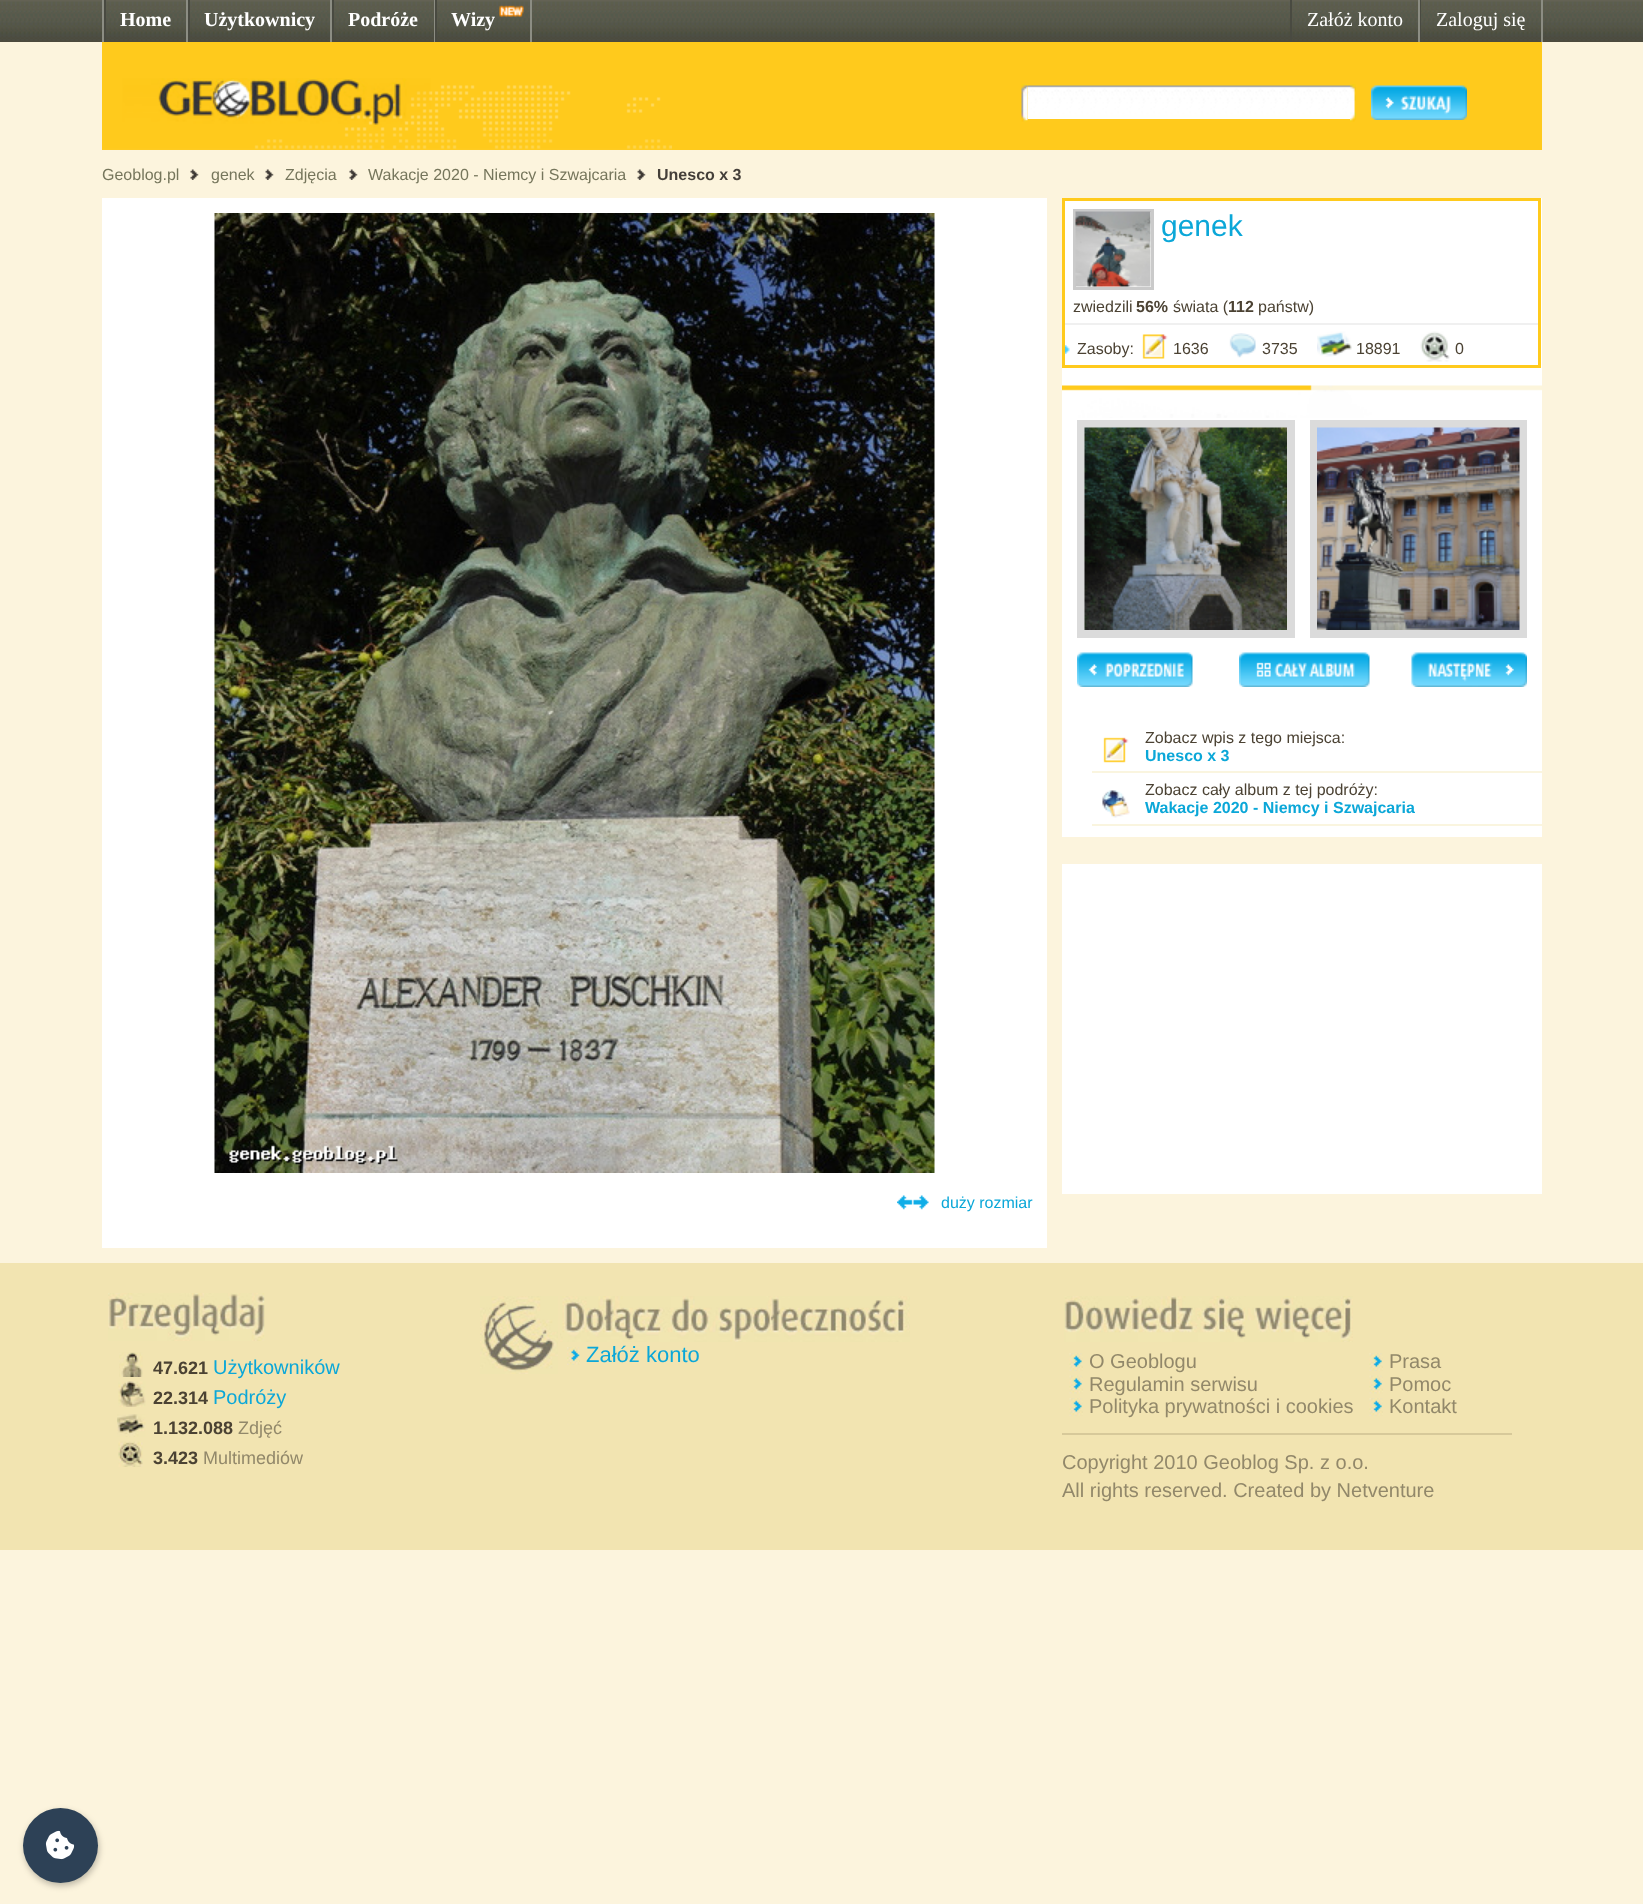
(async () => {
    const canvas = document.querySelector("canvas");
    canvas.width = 1643;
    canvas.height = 1904;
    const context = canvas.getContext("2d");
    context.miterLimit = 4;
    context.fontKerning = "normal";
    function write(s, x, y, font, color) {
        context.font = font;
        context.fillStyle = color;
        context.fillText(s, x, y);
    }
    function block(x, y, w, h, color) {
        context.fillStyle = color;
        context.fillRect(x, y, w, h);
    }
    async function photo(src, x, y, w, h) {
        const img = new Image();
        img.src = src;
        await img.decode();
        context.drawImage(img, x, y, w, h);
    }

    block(0, 0, 1643, 1904, "rgb(252, 244, 221)");
    await photo("media/1.png", 0, 0, 1643, 42);
    block(102, 0, 2, 42, "rgb(140, 141, 131)");
    block(186, 0, 2, 42, "rgb(140, 141, 131)");
    block(104, 0, 2, 42, "rgb(73, 74, 65)");
    write("Home", 120, 26, "bold 20px Liberation Serif", "rgb(255, 255, 255)");
    block(330, 0, 2, 42, "rgb(140, 141, 131)");
    block(188, 0, 2, 42, "rgb(73, 74, 65)");
    write("Użytkownicy", 204, 26, "bold 20px Liberation Serif", "rgb(255, 255, 255)");
    block(434, 0, 1, 42, "rgb(140, 141, 131)");
    block(332, 0, 2, 42, "rgb(73, 74, 65)");
    write("Podróże", 348, 26, "bold 20px Liberation Serif", "rgb(255, 255, 255)");
    block(530, 0, 2, 42, "rgb(140, 141, 131)");
    block(435, 0, 2, 42, "rgb(73, 74, 65)");
    write("Wizy", 451, 26, "bold 20px Liberation Serif", "rgb(255, 255, 255)");
    await photo("media/2.png", 499, 5, 25, 12);
    block(1418, 0, 2, 42, "rgb(140, 141, 131)");
    block(1290, 0, 2, 42, "rgb(73, 74, 65)");
    write("Załóż konto", 1307, 26, "20px Liberation Serif", "rgb(255, 255, 255)");
    block(1541, 0, 2, 42, "rgb(140, 141, 131)");
    block(1420, 0, 1, 42, "rgb(73, 74, 65)");
    write("Zaloguj się", 1436, 26, "20px Liberation Serif", "rgb(255, 255, 255)");
    block(102, 42, 1440, 108, "rgb(255, 202, 28)");
    await photo("media/3.png", 102, 78, 570, 72);
    await photo("media/4.png", 1021, 84, 7, 38);
    block(1028, 118, 322, 1, "rgb(255, 255, 255)");
    await photo("media/5.png", 1027, 84, 323, 35);
    await photo("media/6.png", 1350, 84, 6, 38);
    await photo("media/7.png", 1371, 85, 96, 35);
    write("Geoblog.pl", 102, 180, "16px Liberation Sans", "rgb(118, 118, 92)");
    await photo("media/8.png", 190, 169, 9, 11);
    write("genek", 211, 180, "16px Liberation Sans", "rgb(118, 118, 92)");
    await photo("media/9.png", 265, 169, 9, 11);
    write("Zdjęcia", 285, 180, "16px Liberation Sans", "rgb(118, 118, 92)");
    await photo("media/8.png", 349, 169, 9, 11);
    write("Wakacje 2020 - Niemcy i Szwajcaria", 368, 180, "16px Liberation Sans", "rgb(118, 118, 92)");
    await photo("media/10.png", 637, 169, 9, 11);
    write("Unesco x 3", 657, 180, "bold 16px Liberation Sans", "rgb(68, 63, 57)");
    block(1062, 198, 480, 639, "rgb(255, 255, 255)");
    context.strokeStyle = "rgb(255, 202, 28)";
    context.lineWidth = 3;
    context.strokeRect(1063.5, 199.5, 476, 167);
    block(1065, 323, 473, 2, "rgb(240, 240, 240)");
    context.strokeStyle = "rgb(202, 202, 202)";
    context.strokeRect(1074.5, 210.5, 78, 78);
    await photo("media/11.png", 1075, 211, 76, 76);
    write("genek", 1161, 236, "30px Liberation Sans", "rgb(11, 167, 216)");
    write("zwiedzili", 1073, 312, "16px Liberation Sans", "rgb(75, 66, 51)");
    write("56%", 1136, 312, "bold 16px Liberation Sans", "rgb(75, 66, 51)");
    write("świata (", 1173, 312, "16px Liberation Sans", "rgb(75, 66, 51)");
    write("112", 1228, 312, "bold 16px Liberation Sans", "rgb(75, 66, 51)");
    write("państw)", 1258, 312, "16px Liberation Sans", "rgb(75, 66, 51)");
    await photo("media/12.png", 1065, 345, 5, 9);
    write("Zasoby:", 1077, 354, "16px Liberation Sans", "rgb(75, 66, 51)");
    await photo("media/13.png", 1142, 334, 26, 25);
    write("1636", 1173, 354, "16px Liberation Sans", "rgb(75, 66, 51)");
    await photo("media/14.png", 1229, 333, 27, 25);
    write("3735", 1262, 354, "16px Liberation Sans", "rgb(75, 66, 51)");
    await photo("media/15.png", 1317, 331, 35, 26);
    write("18891", 1356, 354, "16px Liberation Sans", "rgb(75, 66, 51)");
    await photo("media/16.png", 1420, 331, 30, 31);
    write("0", 1455, 354, "16px Liberation Sans", "rgb(75, 66, 51)");
    await photo("media/17.png", 1062, 385, 480, 33);
    context.strokeStyle = "rgb(219, 219, 219)";
    context.lineWidth = 8;
    context.strokeRect(1081, 424, 210, 210);
    await photo("media/18.png", 1084, 427, 203, 203);
    context.strokeRect(1314, 424, 209, 210);
    await photo("media/19.png", 1317, 427, 203, 203);
    await photo("media/20.png", 1077, 652, 116, 35);
    await photo("media/21.png", 1239, 652, 131, 35);
    await photo("media/22.png", 1411, 652, 116, 35);
    block(1092, 771, 450, 2, "rgb(250, 245, 223)");
    await photo("media/23.png", 1103, 737, 26, 26);
    write("Zobacz wpis z tego miejsca:", 1145, 743, "16px Liberation Sans", "rgb(75, 66, 51)");
    write("Unesco x 3", 1145, 761, "bold 16px Liberation Sans", "rgb(11, 167, 216)");
    block(1092, 824, 450, 2, "rgb(250, 245, 223)");
    await photo("media/24.png", 1102, 790, 28, 28);
    write("Zobacz cały album z tej podróży:", 1145, 795, "16px Liberation Sans", "rgb(75, 66, 51)");
    write("Wakacje 2020 - Niemcy i Szwajcaria", 1145, 813, "bold 16px Liberation Sans", "rgb(11, 167, 216)");
    block(1062, 864, 480, 330, "rgb(255, 255, 255)");
    block(102, 198, 945, 1050, "rgb(255, 255, 255)");
    await photo("media/25.png", 214, 213, 721, 960);
    await photo("media/26.png", 897, 1195, 32, 15);
    write("duży rozmiar", 941, 1208, "16px Liberation Sans", "rgb(11, 167, 216)");
    block(0, 1263, 1643, 287, "rgb(242, 228, 177)");
    await photo("media/27.png", 480, 1296, 78, 78);
    await photo("media/28.png", 560, 1296, 350, 46);
    await photo("media/29.png", 567, 1347, 13, 18);
    write("Załóż konto", 586, 1362, "22px Liberation Sans", "rgb(11, 167, 216)");
    await photo("media/30.png", 108, 1293, 157, 48);
    await photo("media/31.png", 119, 1352, 24, 25);
    write("47.621", 153, 1374, "bold 18px Liberation Sans", "rgb(75, 66, 51)");
    write("Użytkowników", 213, 1374, "20px Liberation Sans", "rgb(11, 167, 216)");
    await photo("media/32.png", 118, 1381, 28, 26);
    write("22.314", 153, 1404, "bold 18px Liberation Sans", "rgb(75, 66, 51)");
    write("Podróży", 213, 1404, "20px Liberation Sans", "rgb(11, 167, 216)");
    await photo("media/33.png", 117, 1414, 29, 23);
    write("1.132.088", 153, 1434, "bold 18px Liberation Sans", "rgb(75, 66, 51)");
    write("Zdjęć", 238, 1434, "18px Liberation Sans", "rgb(146, 136, 106)");
    await photo("media/34.png", 118, 1441, 25, 26);
    write("3.423", 153, 1464, "bold 18px Liberation Sans", "rgb(75, 66, 51)");
    write("Multimediów", 203, 1464, "18px Liberation Sans", "rgb(146, 136, 106)");
    await photo("media/35.png", 1064, 1296, 289, 46);
    block(1062, 1433, 450, 2, "rgb(215, 201, 154)");
    await photo("media/36.png", 1069, 1353, 14, 18);
    write("O Geoblogu", 1089, 1368, "20px Liberation Sans", "rgb(146, 136, 106)");
    await photo("media/37.png", 1069, 1375, 14, 19);
    write("Regulamin serwisu", 1089, 1391, "20px Liberation Sans", "rgb(146, 136, 106)");
    await photo("media/36.png", 1069, 1398, 14, 18);
    write("Polityka prywatności i cookies", 1089, 1413, "20px Liberation Sans", "rgb(146, 136, 106)");
    await photo("media/38.png", 1369, 1353, 14, 18);
    write("Prasa", 1389, 1368, "20px Liberation Sans", "rgb(146, 136, 106)");
    await photo("media/39.png", 1369, 1375, 14, 19);
    write("Pomoc", 1389, 1391, "20px Liberation Sans", "rgb(146, 136, 106)");
    await photo("media/38.png", 1369, 1398, 14, 18);
    write("Kontakt", 1389, 1413, "20px Liberation Sans", "rgb(146, 136, 106)");
    write("Copyright 2010 Geoblog Sp. z o.o.", 1062, 1469, "20px Liberation Sans", "rgb(146, 136, 106)");
    write("All rights reserved. Created by Netventure", 1062, 1497, "20px Liberation Sans", "rgb(146, 136, 106)");
    context.fillStyle = "rgba(0, 0, 0, 0.25)";
    context.filter = "blur(3px)";
    context.beginPath();
    context.roundRect(24, 1811, 75, 75, 37.5);
    context.fill();
    context.filter = "none";
    context.fillStyle = "rgb(45, 65, 86)";
    context.beginPath();
    context.arc(60.5, 1845.5, 37.5, 0, Math.PI * 2);
    context.fill();
    await photo("media/40.png", 45, 1830, 30, 30);
})();
